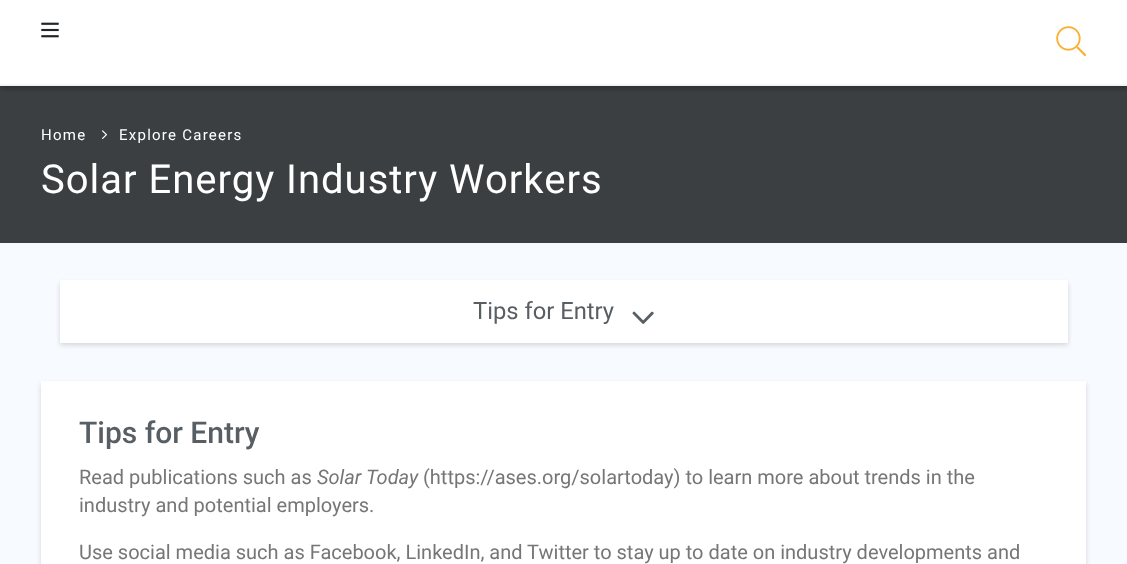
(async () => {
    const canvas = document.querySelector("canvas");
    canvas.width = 1127;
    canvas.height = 564;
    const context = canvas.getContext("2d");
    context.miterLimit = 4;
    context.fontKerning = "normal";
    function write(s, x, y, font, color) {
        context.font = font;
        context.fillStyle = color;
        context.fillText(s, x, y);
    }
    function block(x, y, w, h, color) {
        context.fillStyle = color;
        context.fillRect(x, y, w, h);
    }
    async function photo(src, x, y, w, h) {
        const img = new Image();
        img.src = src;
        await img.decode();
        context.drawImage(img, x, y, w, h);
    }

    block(0, 0, 1127, 564, "rgb(255, 255, 255)");
    block(0, 86, 1127, 157, "rgb(59, 63, 66)");
    context.save();
    context.beginPath();
    context.rect(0, 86, 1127, 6);
    context.clip();
    context.fillStyle = "rgba(0, 0, 0, 0.21)";
    context.filter = "blur(2.5px)";
    context.beginPath();
    context.rect(0, 3, 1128, 86);
    context.fill();
    context.filter = "none";
    context.restore();
    block(0, 85, 1127, 1, "rgb(240, 241, 241)");
    block(0, 84, 1127, 1, "rgb(246, 246, 245)");
    await photo("media/1.png", 41, 22, 18, 16);
    await photo("media/2.png", 1056, 26, 31, 31);
    context.letterSpacing = "1.25px";
    write("Home", 41, 140, "15px Roboto", "rgb(255, 255, 255)");
    await photo("media/3.png", 102, 130, 5, 9);
    write("Explore Careers", 119, 140, "15px Roboto", "rgb(255, 255, 255)");
    context.letterSpacing = "1px";
    write("Solar Energy Industry Workers", 41, 193, "40px Roboto", "rgb(255, 255, 255)");
    block(0, 243, 1127, 321, "rgb(247, 251, 255)");
    context.fillStyle = "rgba(0, 0, 0, 0.15)";
    context.filter = "blur(2.5px)";
    context.beginPath();
    context.rect(60, 283, 1008, 62);
    context.fill();
    context.filter = "none";
    block(60, 280, 1008, 63, "rgb(255, 255, 255)");
    context.letterSpacing = "0px";
    write("Tips for Entry", 473, 319, "23.75px Roboto", "rgb(88, 95, 100)");
    await photo("media/4.png", 632, 311, 22, 13);
    context.fillStyle = "rgba(0, 0, 0, 0.15)";
    context.filter = "blur(2.5px)";
    context.beginPath();
    context.rect(41, 384, 1045, 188);
    context.fill();
    context.filter = "none";
    block(41, 381, 1045, 183, "rgb(255, 255, 255)");
    write("Tips for Entry", 79, 443, "500 30px Roboto", "rgb(88, 95, 100)");
    write("Read publications such as", 79, 484, "20px Roboto", "rgb(118, 118, 118)");
    write("Solar Today", 317, 484, "italic 20px Roboto", "rgb(118, 118, 118)");
    write("(https://ases.org/solartoday) to learn more about trends in the", 423, 484, "20px Roboto", "rgb(118, 118, 118)");
    write("industry and potential employers.", 79, 512, "20px Roboto", "rgb(118, 118, 118)");
    write("Use social media such as Facebook, LinkedIn, and Twitter to stay up to date on industry developments and", 79, 559, "20px Roboto", "rgb(118, 118, 118)");
})();
